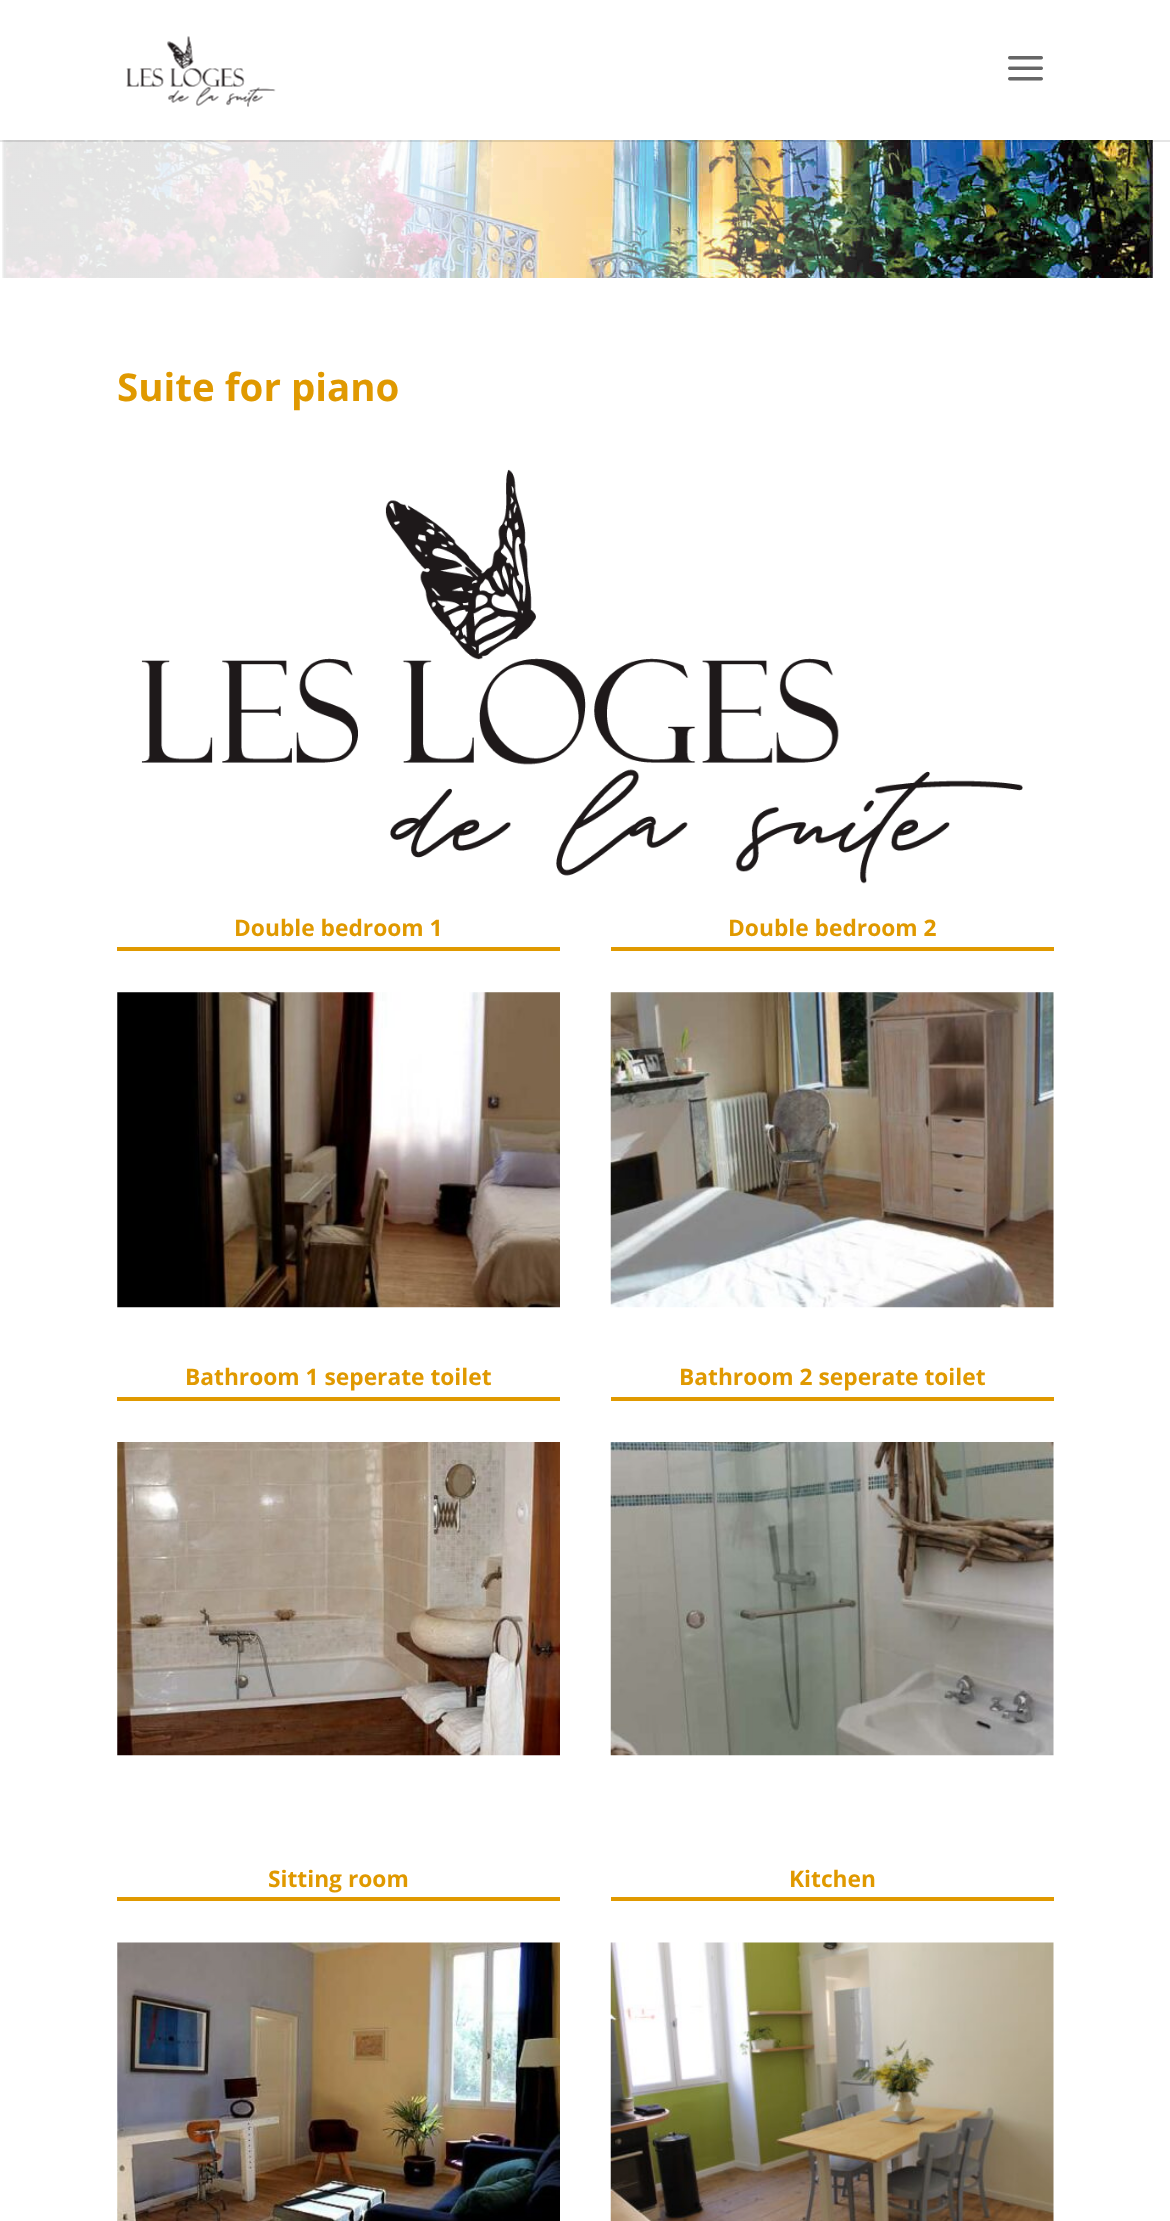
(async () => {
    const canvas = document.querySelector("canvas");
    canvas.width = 1170;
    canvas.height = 2221;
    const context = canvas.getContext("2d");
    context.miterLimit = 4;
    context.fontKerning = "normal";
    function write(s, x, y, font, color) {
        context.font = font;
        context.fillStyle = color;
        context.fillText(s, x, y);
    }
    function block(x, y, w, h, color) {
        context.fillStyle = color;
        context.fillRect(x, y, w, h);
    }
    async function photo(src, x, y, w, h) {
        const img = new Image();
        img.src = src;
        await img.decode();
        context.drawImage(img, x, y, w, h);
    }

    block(0, 0, 1170, 2221, "rgb(255, 255, 255)");
    await photo("media/3.png", 2, 140, 1151, 138);
    context.fillStyle = "rgba(0, 0, 0, 0.1)";
    context.beginPath();
    context.moveTo(0, 140);
    context.lineTo(0, 142);
    context.lineTo(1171, 142);
    context.lineTo(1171, 2);
    context.lineTo(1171, 140);
    context.closePath();
    context.fill();
    await photo("media/1.png", 126, 36, 150, 71);
    await photo("media/2.png", 1008, 56, 35, 25);
    write("Suite for piano", 117, 401, "bold 38.5px Open Sans", "rgb(224, 153, 0)");
    await photo("media/4.png", 141, 469, 882, 415);
    block(117, 947, 443, 4, "rgb(224, 153, 0)");
    write("Double bedroom 1", 234, 936, "bold 22.75px Open Sans", "rgb(224, 153, 0)");
    await photo("media/5.png", 117, 992, 443, 316);
    block(117, 1397, 443, 4, "rgb(224, 153, 0)");
    write("Bathroom 1 seperate toilet", 185, 1385, "bold 22.75px Open Sans", "rgb(224, 153, 0)");
    await photo("media/6.png", 117, 1442, 443, 314);
    block(611, 947, 443, 4, "rgb(224, 153, 0)");
    write("Double bedroom 2", 728, 936, "bold 22.75px Open Sans", "rgb(224, 153, 0)");
    await photo("media/7.png", 610, 992, 444, 316);
    block(611, 1397, 443, 4, "rgb(224, 153, 0)");
    write("Bathroom 2 seperate toilet", 679, 1385, "bold 22.75px Open Sans", "rgb(224, 153, 0)");
    await photo("media/8.png", 610, 1442, 444, 314);
    block(117, 1897, 443, 4, "rgb(224, 153, 0)");
    write("Sitting room", 268, 1887, "bold 22.75px Open Sans", "rgb(224, 153, 0)");
    await photo("media/9.png", 117, 1942, 443, 279);
    block(611, 1897, 443, 4, "rgb(224, 153, 0)");
    write("Kitchen", 789, 1887, "bold 22.75px Open Sans", "rgb(224, 153, 0)");
    await photo("media/10.png", 610, 1942, 444, 279);
})();
